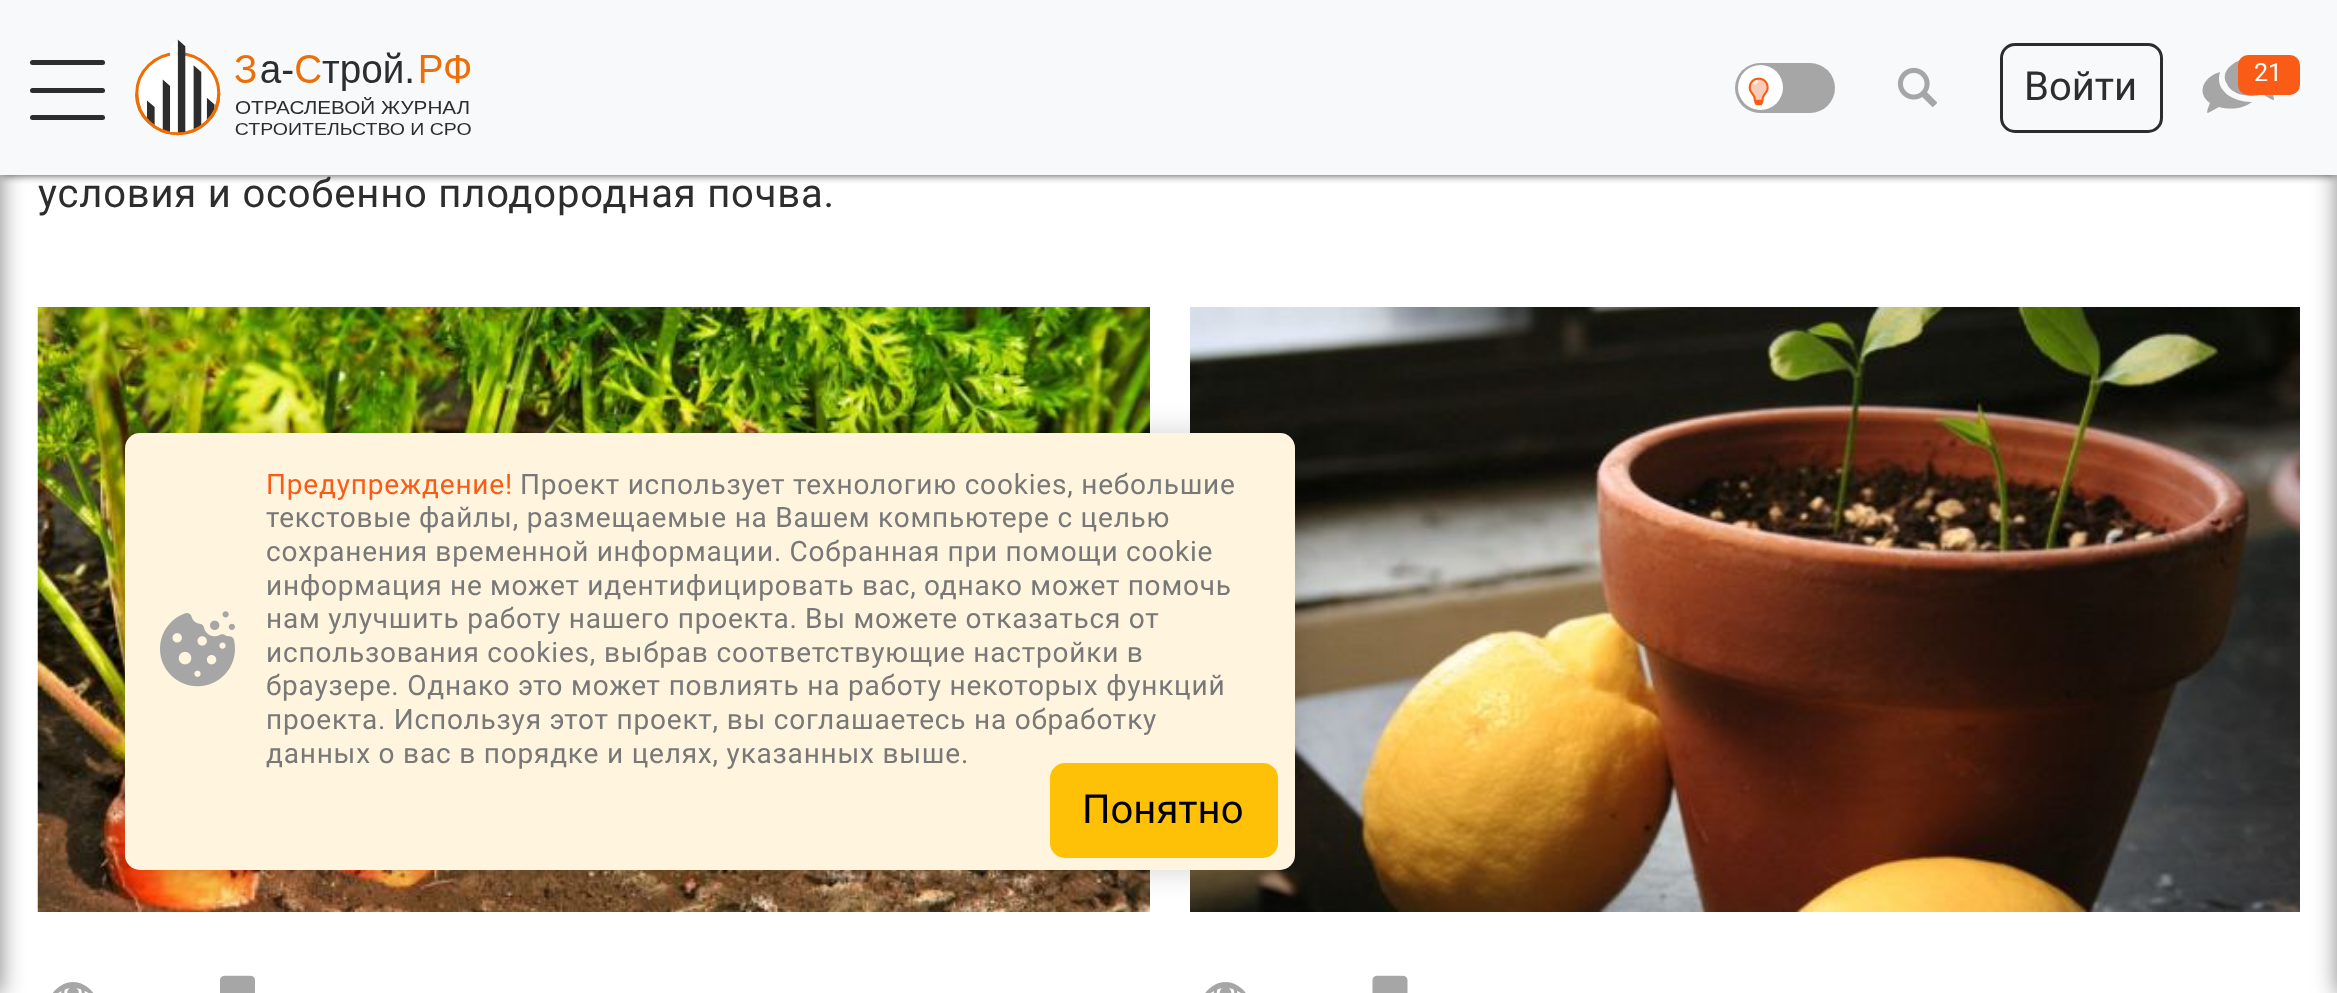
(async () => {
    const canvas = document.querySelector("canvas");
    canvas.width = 2337;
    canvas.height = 993;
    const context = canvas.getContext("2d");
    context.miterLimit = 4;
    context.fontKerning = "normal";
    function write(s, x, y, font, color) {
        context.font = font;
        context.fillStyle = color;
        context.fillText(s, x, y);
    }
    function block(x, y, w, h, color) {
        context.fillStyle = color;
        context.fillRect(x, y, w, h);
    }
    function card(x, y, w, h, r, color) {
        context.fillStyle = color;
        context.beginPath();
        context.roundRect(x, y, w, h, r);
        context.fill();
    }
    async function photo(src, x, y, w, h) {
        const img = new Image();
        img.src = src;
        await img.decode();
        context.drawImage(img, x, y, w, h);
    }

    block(0, 0, 2337, 993, "rgb(255, 255, 255)");
    await photo("media/5.png", 37, 307, 1113, 605);
    context.fillStyle = "rgba(0, 0, 0, 0.5)";
    context.filter = "blur(12.5px)";
    context.beginPath();
    context.rect(-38, 0, 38, 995);
    context.fill();
    context.filter = "none";
    context.fillStyle = "rgba(0, 0, 0, 0.75)";
    context.filter = "blur(4px)";
    context.beginPath();
    context.rect(3, 5, 2332, 170);
    context.fill();
    context.filter = "none";
    await photo("media/8.png", 1190, 307, 1110, 605);
    context.fillStyle = "rgba(0, 0, 0, 0.5)";
    context.filter = "blur(12.5px)";
    context.beginPath();
    context.rect(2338, 0, 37, 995);
    context.fill();
    context.filter = "none";
    block(0, 0, 2337, 175, "rgb(248, 249, 250)");
    card(30, 60, 75, 5, 2.5, "rgb(45, 45, 45)");
    card(30, 88, 75, 5, 2.5, "rgb(45, 45, 45)");
    card(30, 115, 75, 5, 2.5, "rgb(45, 45, 45)");
    await photo("media/1.png", 135, 39, 336, 97);
    card(1735, 63, 100, 50, 25, "rgb(166, 166, 166)");
    context.fillStyle = "rgb(255, 255, 255)";
    context.beginPath();
    context.arc(1760.5, 87.5, 22.5, 0, Math.PI * 2);
    context.fill();
    await photo("media/2.png", 1748, 77, 21, 29);
    await photo("media/3.png", 1751, 80, 16, 20);
    await photo("media/4.png", 1897, 67, 40, 40);
    context.beginPath();
    context.roundRect(2001.5, 44.5, 160, 87, 13.5);
    context.strokeStyle = "rgb(45, 45, 45)";
    context.lineWidth = 3;
    context.stroke();
    write("Войти", 2024, 100, "40px Roboto", "rgb(45, 45, 45)");
    context.fillStyle = "rgb(166, 166, 166)";
    context.beginPath();
    context.moveTo(2274, 99);
    context.bezierCurveTo(2275, 102, 2267, 97, 2263, 94);
    context.bezierCurveTo(2255, 97, 2246, 96, 2239, 94);
    context.bezierCurveTo(2234, 92, 2229, 89, 2227, 84);
    context.bezierCurveTo(2219, 71, 2235, 60, 2246, 59);
    context.bezierCurveTo(2254, 58, 2262, 59, 2269, 63);
    context.bezierCurveTo(2280, 69, 2282, 82, 2272, 90);
    context.closePath();
    context.moveTo(2251, 102);
    context.bezierCurveTo(2234, 102, 2214, 91, 2220, 72);
    context.bezierCurveTo(2205, 76, 2195, 92, 2210, 103);
    context.bezierCurveTo(2208, 108, 2206, 113, 2208, 113);
    context.lineTo(2219, 107);
    context.bezierCurveTo(2230, 110, 2243, 109, 2252, 102);
    context.closePath();
    context.fill();
    card(2238, 55, 62, 40, 10, "rgb(250, 92, 23)");
    write("21", 2254, 81, "25px Roboto", "rgb(255, 255, 255)");
    context.letterSpacing = "0.8px";
    write("условия и особенно плодородная почва.", 38, 207, "40px Roboto", "rgb(45, 45, 45)");
    await photo("media/6.png", 53, 982, 41, 11);
    await photo("media/7.png", 220, 975, 35, 18);
    await photo("media/9.png", 1205, 982, 41, 11);
    await photo("media/10.png", 1372, 975, 36, 18);
    context.fillStyle = "rgba(0, 0, 0, 0.18)";
    context.filter = "blur(15px)";
    context.beginPath();
    context.roundRect(125, 433, 1170, 437, 15);
    context.fill();
    context.filter = "none";
    card(125, 433, 1170, 437, 15, "rgb(255, 245, 223)");
    await photo("media/11.png", 160, 611, 75, 76);
    write("Предупреждение!", 266, 494, "28px Roboto", "rgb(250, 92, 23)");
    write("Проект использует технологию cookies, небольшие", 520, 494, "28px Roboto", "rgb(120, 120, 120)");
    write("текстовые", 266, 527, "28px Roboto", "rgb(120, 120, 120)");
    write("файлы, размещаемые на Вашем компьютере с целью", 419, 527, "28px Roboto", "rgb(120, 120, 120)");
    context.wordSpacing = "-0.25px";
    write("сохранения временной информации. Собранная при помощи", 266, 561, "28px Roboto", "rgb(120, 120, 120)");
    context.wordSpacing = "0px";
    write("cookie", 1126, 561, "28px Roboto", "rgb(120, 120, 120)");
    context.wordSpacing = "-0.25px";
    write("информация не может идентифицировать вас, однако может помочь", 266, 595, "28px Roboto", "rgb(120, 120, 120)");
    context.wordSpacing = "0px";
    write("нам улучшить работу нашего проекта.", 266, 628, "28px Roboto", "rgb(120, 120, 120)");
    write("Вы можете отказаться от", 805, 628, "28px Roboto", "rgb(120, 120, 120)");
    write("использования cookies, выбрав соответствующие настройки в", 266, 662, "28px Roboto", "rgb(120, 120, 120)");
    write("браузере. Однако это может повлиять на работу некоторых функций", 266, 695, "28px Roboto", "rgb(120, 120, 120)");
    write("проекта. Используя этот проект, вы соглашаетесь на обработку", 266, 729, "28px Roboto", "rgb(120, 120, 120)");
    write("данных о вас в порядке и целях, указанных выше.", 266, 763, "28px Roboto", "rgb(120, 120, 120)");
    context.fillStyle = "rgb(255, 193, 7)";
    context.beginPath();
    context.roundRect(1051.5, 764.5, 225, 92, 13.5);
    context.fill();
    context.strokeStyle = "rgb(255, 193, 7)";
    context.stroke();
    context.letterSpacing = "0px";
    write("Понятно", 1082, 823, "40px Roboto", "rgb(0, 0, 0)");
})();
